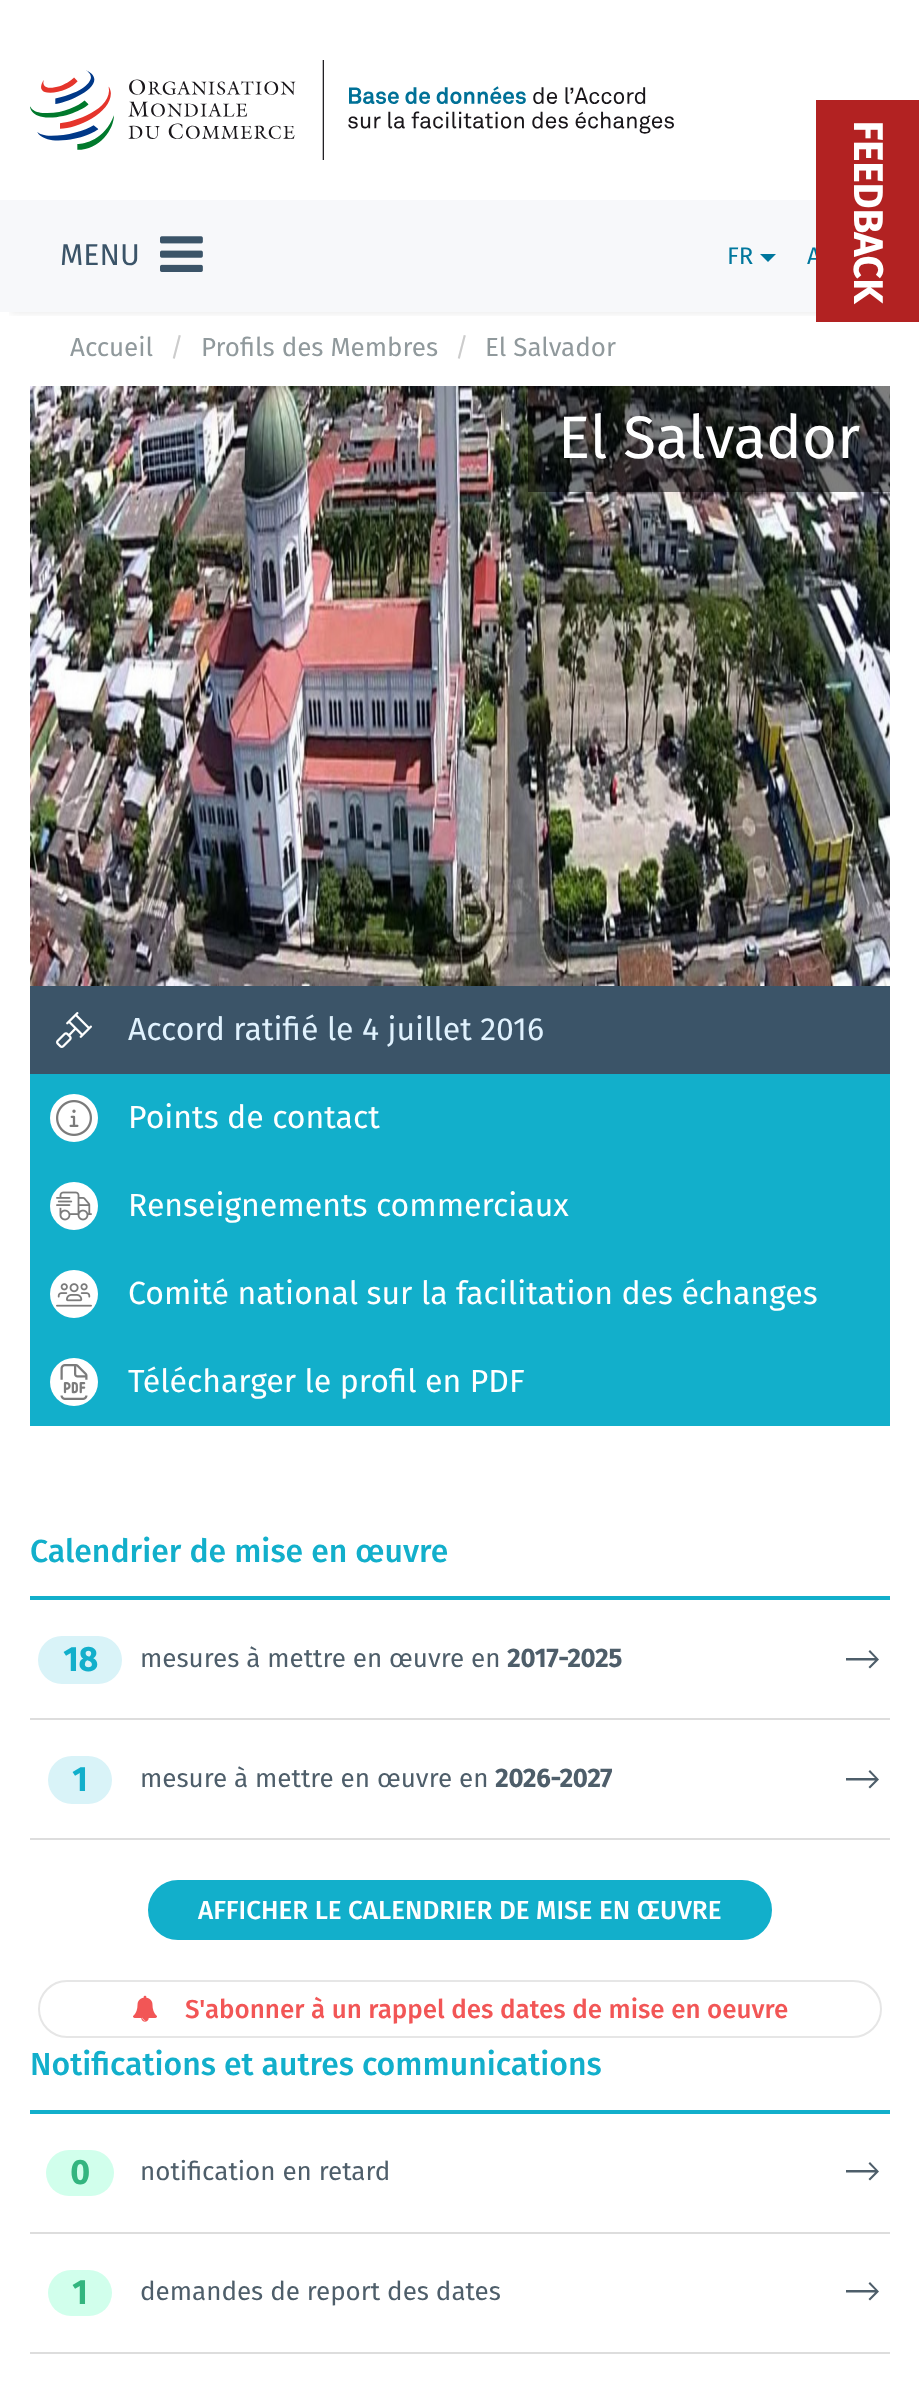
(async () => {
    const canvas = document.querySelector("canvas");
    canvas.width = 919;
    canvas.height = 2381;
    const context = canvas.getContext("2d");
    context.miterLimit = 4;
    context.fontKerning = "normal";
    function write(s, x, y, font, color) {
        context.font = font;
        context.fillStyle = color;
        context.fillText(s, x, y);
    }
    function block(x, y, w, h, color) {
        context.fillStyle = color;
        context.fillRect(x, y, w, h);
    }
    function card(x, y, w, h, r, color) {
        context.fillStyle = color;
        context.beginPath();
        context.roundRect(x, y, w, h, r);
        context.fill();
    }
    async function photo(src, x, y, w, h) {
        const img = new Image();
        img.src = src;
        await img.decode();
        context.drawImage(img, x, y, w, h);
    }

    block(0, 0, 919, 2381, "rgb(255, 255, 255)");
    context.save();
    context.beginPath();
    context.rect(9, 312, 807, 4);
    context.clip();
    context.fillStyle = "rgba(0, 0, 0, 0.1)";
    context.filter = "blur(5px)";
    context.beginPath();
    context.rect(10, 20, 900, 292);
    context.fill();
    context.filter = "none";
    context.restore();
    block(0, 200, 816, 112, "rgb(247, 248, 250)");
    write("A", 807, 264, "24px Fira Sans", "rgb(0, 119, 157)");
    block(816, 100, 103, 222, "rgb(178, 34, 34)");
    context.font = "bold 40px Fira Sans";
    context.fillStyle = "rgb(255, 255, 255)";
    context.save();
    context.translate(854, 120);
    context.rotate(90 * Math.PI / 180);
    context.fillText("FEEDBACK", 0, 0);
    context.restore();
    await photo("media/1.png", 30, 60, 644, 100);
    write("MENU", 60, 265, "30px Fira Sans", "rgb(59, 84, 104)");
    await photo("media/2.png", 160, 236, 43, 36);
    write("FR", 727, 264, "24px Fira Sans", "rgb(0, 119, 157)");
    context.beginPath();
    context.moveTo(760, 254);
    context.lineTo(776, 254);
    context.lineTo(768, 262);
    context.closePath();
    context.fill();
    write("Accueil", 70, 356, "26px Fira Sans", "rgb(144, 153, 156)");
    write("/", 170, 356, "26px Fira Sans", "rgb(204, 204, 204)");
    write("Profils des Membres", 201, 356, "26px Fira Sans", "rgb(144, 153, 156)");
    write("/", 455, 356, "26px Fira Sans", "rgb(204, 204, 204)");
    write("El Salvador", 485, 356, "26px Fira Sans", "rgb(144, 153, 156)");
    await photo("media/3.png", 30, 386, 860, 600);
    block(528, 386, 362, 106, "rgba(0, 0, 0, 0.5)");
    write("El Salvador", 558, 458, "60px Fira Sans", "rgb(255, 255, 255)");
    block(30, 986, 860, 88, "rgb(59, 84, 104)");
    await photo("media/4.png", 56, 1012, 36, 36);
    write("Accord ratifié le 4 juillet 2016", 128, 1040, "32px Fira Sans", "rgb(224, 242, 254)");
    block(30, 1074, 860, 352, "rgb(18, 175, 203)");
    context.fillStyle = "rgb(255, 255, 255)";
    context.beginPath();
    context.arc(74, 1118, 24, 0, Math.PI * 2);
    context.fill();
    await photo("media/5.png", 56, 1100, 36, 36);
    write("Points de contact", 128, 1128, "32px Fira Sans", "rgb(255, 255, 255)");
    context.beginPath();
    context.arc(74, 1206, 24, 0, Math.PI * 2);
    context.fill();
    await photo("media/6.png", 56, 1191, 36, 30);
    write("Renseignements commerciaux", 128, 1216, "32px Fira Sans", "rgb(255, 255, 255)");
    context.beginPath();
    context.arc(74, 1294, 24, 0, Math.PI * 2);
    context.fill();
    await photo("media/7.png", 56, 1283, 36, 24);
    write("Comité national sur la facilitation des échanges", 128, 1304, "32px Fira Sans", "rgb(255, 255, 255)");
    context.beginPath();
    context.arc(74, 1382, 24, 0, Math.PI * 2);
    context.fill();
    await photo("media/8.png", 60, 1364, 28, 36);
    write("Télécharger le profil en PDF", 128, 1392, "32px Fira Sans", "rgb(255, 255, 255)");
    write("Calendrier de mise en œuvre", 30, 1562, "500 32px Fira Sans", "rgb(18, 175, 203)");
    block(30, 1596, 860, 4, "rgb(18, 175, 203)");
    block(30, 1718, 860, 2, "rgb(221, 221, 221)");
    card(38, 1636, 84, 48, 24, "rgb(217, 243, 248)");
    write("18", 63, 1671, "bold 34px Fira Sans", "rgb(18, 175, 203)");
    write("mesures à mettre en œuvre en", 140, 1667, "26px Fira Sans", "rgb(78, 94, 106)");
    write("2017-2025", 507, 1667, "bold 26px Fira Sans", "rgb(78, 94, 106)");
    context.beginPath();
    context.moveTo(870, 1668.5);
    context.lineTo(868.5, 1667);
    context.lineTo(875, 1660.5);
    context.lineTo(846, 1660.5);
    context.lineTo(846, 1658);
    context.lineTo(875, 1658);
    context.lineTo(868.5, 1651.5);
    context.lineTo(870, 1650);
    context.lineTo(879, 1659.5);
    context.closePath();
    context.fill();
    block(30, 1838, 860, 2, "rgb(221, 221, 221)");
    card(48, 1756, 64, 48, 24, "rgb(217, 243, 248)");
    write("1", 72, 1791, "bold 34px Fira Sans", "rgb(18, 175, 203)");
    write("mesure à mettre en œuvre en", 140, 1787, "26px Fira Sans", "rgb(78, 94, 106)");
    write("2026-2027", 495, 1787, "bold 26px Fira Sans", "rgb(78, 94, 106)");
    context.beginPath();
    context.moveTo(870, 1788.5);
    context.lineTo(868.5, 1787);
    context.lineTo(875, 1780.5);
    context.lineTo(846, 1780.5);
    context.lineTo(846, 1778);
    context.lineTo(875, 1778);
    context.lineTo(868.5, 1771.5);
    context.lineTo(870, 1770);
    context.lineTo(879, 1779.5);
    context.closePath();
    context.fill();
    context.fillStyle = "rgb(18, 175, 203)";
    context.beginPath();
    context.roundRect(149, 1881, 622, 58, 29);
    context.fill();
    context.strokeStyle = "rgb(18, 175, 203)";
    context.lineWidth = 2;
    context.stroke();
    write("AFFICHER LE CALENDRIER DE MISE EN ŒUVRE", 198, 1919, "500 26px Fira Sans", "rgb(255, 255, 255)");
    context.beginPath();
    context.roundRect(39, 1981, 842, 56, 28);
    context.strokeStyle = "rgb(230, 230, 230)";
    context.stroke();
    await photo("media/9.png", 133, 1995, 24, 27);
    write("S'abonner à un rappel des dates de mise en oeuvre", 185, 2018, "500 26px Fira Sans", "rgb(242, 86, 86)");
    write("Notifications et autres communications", 30, 2075, "500 32px Fira Sans", "rgb(18, 175, 203)");
    block(30, 2110, 860, 4, "rgb(18, 175, 203)");
    block(30, 2232, 860, 2, "rgb(221, 221, 221)");
    card(46, 2150, 68, 46, 23, "rgb(209, 255, 236)");
    write("0", 70, 2184, "bold 34px Fira Sans", "rgb(51, 181, 127)");
    write("notification en retard", 140, 2180, "26px Fira Sans", "rgb(78, 94, 106)");
    context.beginPath();
    context.moveTo(870, 2180.5);
    context.lineTo(868.5, 2179);
    context.lineTo(875, 2172.5);
    context.lineTo(846, 2172.5);
    context.lineTo(846, 2170);
    context.lineTo(875, 2170);
    context.lineTo(868.5, 2163.5);
    context.lineTo(870, 2162);
    context.lineTo(879, 2171.5);
    context.closePath();
    context.fill();
    block(30, 2352, 860, 2, "rgb(221, 221, 221)");
    card(48, 2270, 64, 46, 23, "rgb(209, 255, 236)");
    write("1", 72, 2304, "bold 34px Fira Sans", "rgb(51, 181, 127)");
    write("demandes de report des dates", 140, 2300, "26px Fira Sans", "rgb(78, 94, 106)");
    context.beginPath();
    context.moveTo(870, 2300.5);
    context.lineTo(868.5, 2299);
    context.lineTo(875, 2292.5);
    context.lineTo(846, 2292.5);
    context.lineTo(846, 2290);
    context.lineTo(875, 2290);
    context.lineTo(868.5, 2283.5);
    context.lineTo(870, 2282);
    context.lineTo(879, 2291.5);
    context.closePath();
    context.fill();
})();
